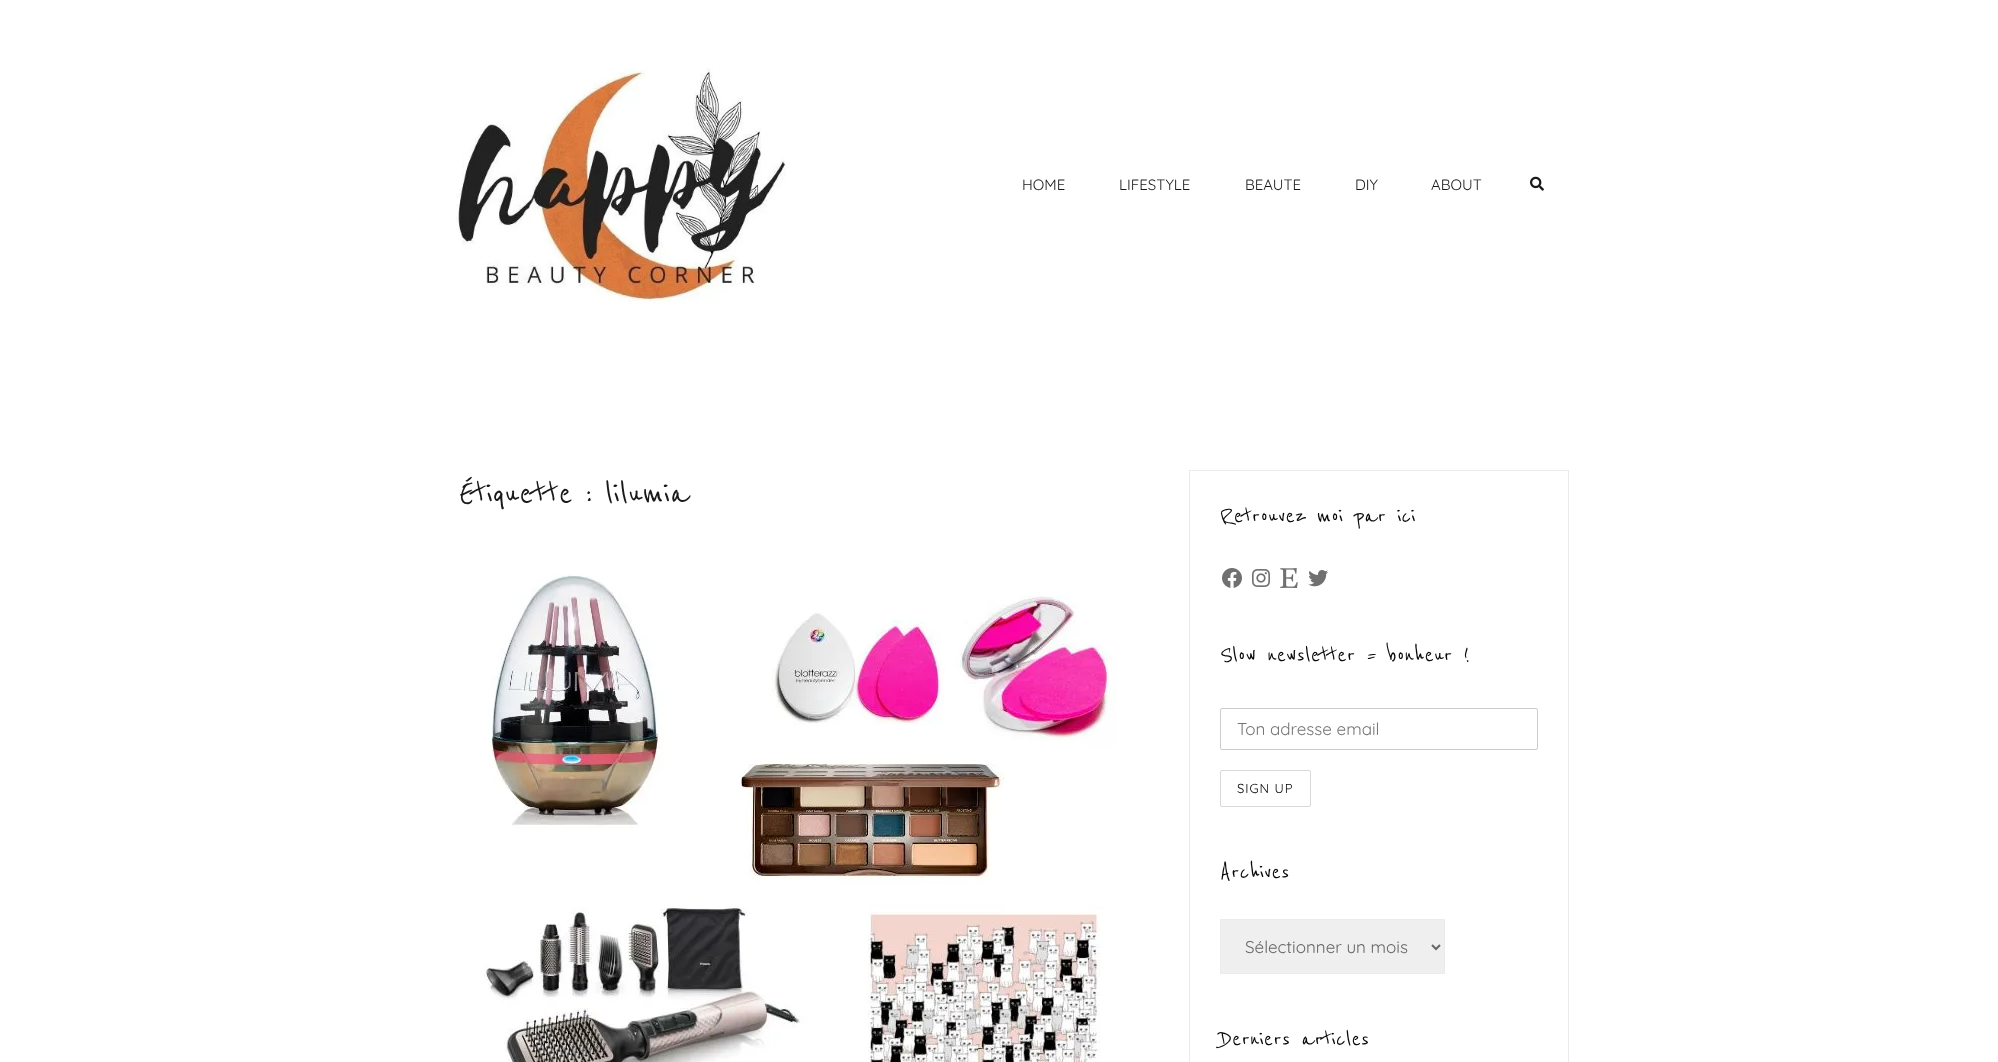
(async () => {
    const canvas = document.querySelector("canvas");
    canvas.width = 1998;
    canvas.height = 1062;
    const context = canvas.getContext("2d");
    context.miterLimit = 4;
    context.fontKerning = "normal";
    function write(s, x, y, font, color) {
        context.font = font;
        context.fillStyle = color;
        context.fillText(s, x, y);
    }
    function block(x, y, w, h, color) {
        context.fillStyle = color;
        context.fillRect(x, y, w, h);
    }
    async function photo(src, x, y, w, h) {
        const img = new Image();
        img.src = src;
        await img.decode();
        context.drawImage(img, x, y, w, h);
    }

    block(0, 0, 1998, 1062, "rgb(255, 255, 255)");
    await photo("media/1.png", 456, 68, 330, 236);
    write("HOME", 1022, 190, "15px Quicksand", "rgb(25, 25, 25)");
    write("LIFESTYLE", 1119, 190, "15px Quicksand", "rgb(25, 25, 25)");
    write("BEAUTE", 1245, 190, "15px Quicksand", "rgb(25, 25, 25)");
    write("DIY", 1355, 190, "15px Quicksand", "rgb(25, 25, 25)");
    write("ABOUT", 1431, 190, "15px Quicksand", "rgb(25, 25, 25)");
    await photo("media/2.png", 1530, 176, 14, 15);
    write("Étiquette", 459, 504, "500 40px Reenie Beanie", "rgb(25, 25, 25)");
    write(":", 585, 504, "500 40px Reenie Beanie", "rgb(25, 25, 25)");
    write("lilumia", 605, 504, "500 40px Reenie Beanie", "rgb(25, 25, 25)");
    await photo("media/3.png", 484, 574, 632, 488);
    context.strokeStyle = "rgb(235, 235, 235)";
    context.strokeRect(1189.5, 470.5, 379, 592);
    write("Retrouvez moi par ici", 1220, 523, "500 27px Reenie Beanie", "rgb(10, 9, 9)");
    await photo("media/4.png", 1222, 568, 20, 20);
    await photo("media/5.png", 1252, 569, 18, 18);
    await photo("media/6.png", 1280, 568, 18, 20);
    await photo("media/7.png", 1308, 570, 20, 17);
    write("Slow newsletter = bonheur !", 1220, 662, "500 27px Reenie Beanie", "rgb(10, 9, 9)");
    context.beginPath();
    context.roundRect(1220.5, 708.5, 317, 41, 1.5);
    context.strokeStyle = "rgb(204, 204, 204)";
    context.stroke();
    write("Ton adresse email", 1237, 735, "17px Quicksand", "rgb(117, 117, 117)");
    context.beginPath();
    context.roundRect(1220.5, 770.5, 90, 36, 1.5);
    context.strokeStyle = "rgb(217, 217, 217)";
    context.stroke();
    context.letterSpacing = "1px";
    write("SIGN UP", 1237, 793, "13px Quicksand", "rgb(0, 0, 0)");
    context.letterSpacing = "0px";
    write("Archives", 1220, 879, "500 27px Reenie Beanie", "rgb(10, 9, 9)");
    context.fillStyle = "rgb(239, 239, 239)";
    context.beginPath();
    context.rect(1220.5, 919.5, 224, 54);
    context.fill();
    context.strokeStyle = "rgb(235, 235, 235)";
    context.stroke();
    context.beginPath();
    context.moveTo(1432, 945);
    context.lineTo(1436, 949);
    context.lineTo(1440, 945);
    context.strokeStyle = "rgb(102, 102, 102)";
    context.lineWidth = 2;
    context.stroke();
    write("Sélectionner un mois", 1245, 953, "17px Quicksand", "rgb(102, 102, 102)");
    write("Derniers articles", 1220, 1046, "500 27px Reenie Beanie", "rgb(10, 9, 9)");
})();
